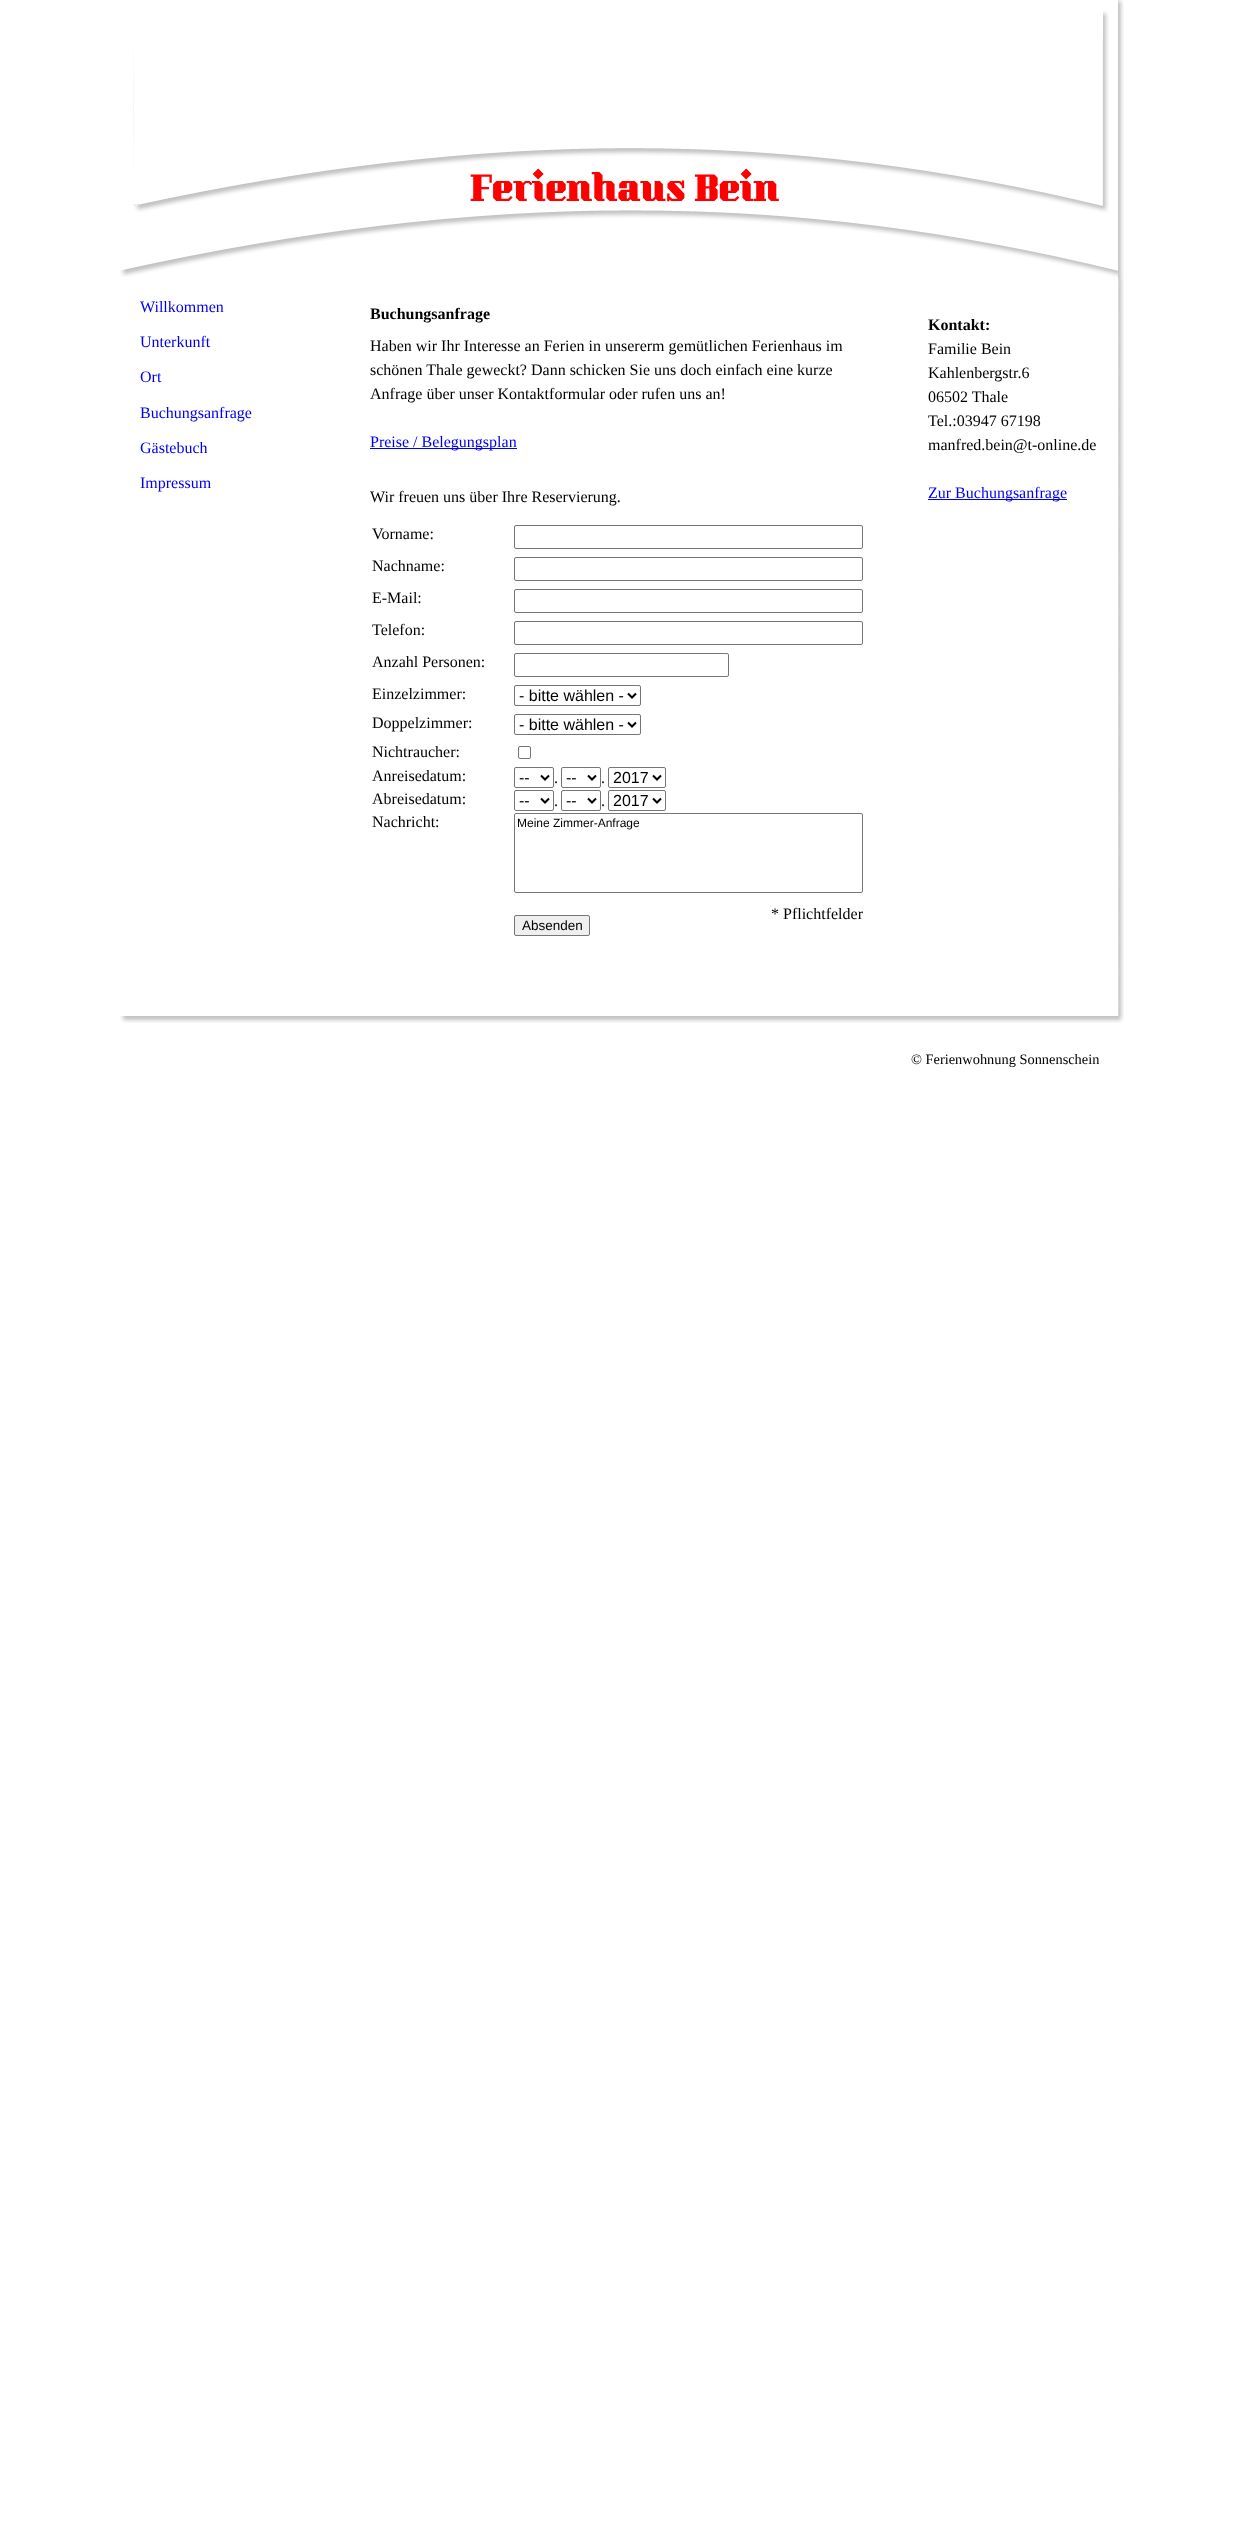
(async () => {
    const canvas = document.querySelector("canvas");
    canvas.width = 1248;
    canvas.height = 2523;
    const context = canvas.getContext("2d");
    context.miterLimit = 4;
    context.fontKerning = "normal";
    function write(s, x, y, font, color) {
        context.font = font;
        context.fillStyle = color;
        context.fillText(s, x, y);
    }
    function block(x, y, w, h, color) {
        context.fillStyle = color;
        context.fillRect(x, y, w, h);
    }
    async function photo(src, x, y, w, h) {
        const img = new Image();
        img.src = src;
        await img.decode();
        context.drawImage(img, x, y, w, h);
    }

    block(0, 0, 1248, 2523, "rgb(255, 255, 255)");
    await photo("media/1.png", 133, 0, 991, 211);
    write("Ferienhaus Bein", 470, 201, "bold 32px Kumar One", "rgb(255, 0, 0)");
    await photo("media/2.png", 120, 211, 220, 66);
    await photo("media/3.png", 340, 211, 578, 27);
    await photo("media/4.png", 918, 211, 200, 66);
    await photo("media/5.png", 1118, 211, 6, 68);
    write("Willkommen", 140, 312, "16px Liberation Serif", "rgb(0, 0, 238)");
    write("Unterkunft", 140, 347, "16px Liberation Serif", "rgb(0, 0, 238)");
    write("Ort", 140, 382, "16px Liberation Serif", "rgb(0, 0, 238)");
    write("Buchungsanfrage", 140, 418, "16px Liberation Serif", "rgb(0, 0, 238)");
    write("Gästebuch", 140, 453, "16px Liberation Serif", "rgb(0, 0, 238)");
    write("Impressum", 140, 488, "16px Liberation Serif", "rgb(0, 0, 238)");
    write("Buchungsanfrage", 370, 319, "bold 16px Liberation Serif", "rgb(0, 0, 0)");
    write("Haben wir Ihr Interesse an Ferien in unsererm gemütlichen Ferienhaus im", 370, 351, "16px Liberation Serif", "rgb(0, 0, 0)");
    write("schönen Thale geweckt? Dann schicken Sie uns doch einfach eine kurze", 370, 375, "16px Liberation Serif", "rgb(0, 0, 0)");
    write("Anfrage über unser Kontaktformular oder rufen uns an!", 370, 399, "16px Liberation Serif", "rgb(0, 0, 0)");
    block(370, 448, 147, 1, "rgb(0, 0, 238)");
    write("Preise / Belegungsplan", 370, 447, "16px Liberation Serif", "rgb(0, 0, 238)");
    write("Wir freuen uns über Ihre Reservierung.", 370, 502, "16px Liberation Serif", "rgb(0, 0, 0)");
    write("Vorname:", 372, 539, "16px Liberation Serif", "rgb(0, 0, 0)");
    context.beginPath();
    context.roundRect(514.5, 525.5, 348, 23, 1.5);
    context.strokeStyle = "rgb(118, 118, 118)";
    context.stroke();
    write("Nachname:", 372, 571, "16px Liberation Serif", "rgb(0, 0, 0)");
    context.beginPath();
    context.roundRect(514.5, 557.5, 348, 23, 1.5);
    context.stroke();
    write("E-Mail:", 372, 603, "16px Liberation Serif", "rgb(0, 0, 0)");
    context.beginPath();
    context.roundRect(514.5, 589.5, 348, 23, 1.5);
    context.stroke();
    write("Telefon:", 372, 635, "16px Liberation Serif", "rgb(0, 0, 0)");
    context.beginPath();
    context.roundRect(514.5, 621.5, 348, 23, 1.5);
    context.stroke();
    write("Anzahl Personen:", 372, 667, "16px Liberation Serif", "rgb(0, 0, 0)");
    context.beginPath();
    context.roundRect(514.5, 653.5, 214, 23, 1.5);
    context.stroke();
    write("Einzelzimmer:", 372, 699, "16px Liberation Serif", "rgb(0, 0, 0)");
    context.beginPath();
    context.roundRect(514.5, 685.5, 126, 20, 1.5);
    context.stroke();
    context.beginPath();
    context.moveTo(628, 693.5);
    context.lineTo(632, 697.5);
    context.lineTo(636, 693.5);
    context.strokeStyle = "rgb(0, 0, 0)";
    context.lineWidth = 2;
    context.stroke();
    write("- bitte wählen -", 519, 701, "16px Liberation Sans", "rgb(0, 0, 0)");
    write("Doppelzimmer:", 372, 728, "16px Liberation Serif", "rgb(0, 0, 0)");
    context.beginPath();
    context.roundRect(514.5, 714.5, 126, 20, 1.5);
    context.strokeStyle = "rgb(118, 118, 118)";
    context.lineWidth = 1;
    context.stroke();
    context.beginPath();
    context.moveTo(628, 722.5);
    context.lineTo(632, 726.5);
    context.lineTo(636, 722.5);
    context.strokeStyle = "rgb(0, 0, 0)";
    context.lineWidth = 2;
    context.stroke();
    write("- bitte wählen -", 519, 730, "16px Liberation Sans", "rgb(0, 0, 0)");
    write("Nichtraucher:", 372, 757, "16px Liberation Serif", "rgb(0, 0, 0)");
    context.beginPath();
    context.roundRect(518.5, 746.5, 12, 12, 1.5);
    context.strokeStyle = "rgb(118, 118, 118)";
    context.lineWidth = 1;
    context.stroke();
    write("Anreisedatum:", 372, 781, "16px Liberation Serif", "rgb(0, 0, 0)");
    context.beginPath();
    context.roundRect(514.5, 767.5, 39, 20, 1.5);
    context.stroke();
    context.beginPath();
    context.moveTo(541, 775.5);
    context.lineTo(545, 779.5);
    context.lineTo(549, 775.5);
    context.strokeStyle = "rgb(0, 0, 0)";
    context.lineWidth = 2;
    context.stroke();
    write("--", 519, 783, "16px Liberation Sans", "rgb(0, 0, 0)");
    context.beginPath();
    context.roundRect(561.5, 767.5, 39, 20, 1.5);
    context.strokeStyle = "rgb(118, 118, 118)";
    context.lineWidth = 1;
    context.stroke();
    context.beginPath();
    context.moveTo(588, 775.5);
    context.lineTo(592, 779.5);
    context.lineTo(596, 775.5);
    context.strokeStyle = "rgb(0, 0, 0)";
    context.lineWidth = 2;
    context.stroke();
    write("--", 566, 783, "16px Liberation Sans", "rgb(0, 0, 0)");
    context.beginPath();
    context.roundRect(608.5, 767.5, 57, 20, 1.5);
    context.strokeStyle = "rgb(118, 118, 118)";
    context.lineWidth = 1;
    context.stroke();
    context.beginPath();
    context.moveTo(653, 775.5);
    context.lineTo(657, 779.5);
    context.lineTo(661, 775.5);
    context.strokeStyle = "rgb(0, 0, 0)";
    context.lineWidth = 2;
    context.stroke();
    write("2017", 613, 783, "16px Liberation Sans", "rgb(0, 0, 0)");
    write(".", 554, 783, "16px Liberation Serif", "rgb(0, 0, 0)");
    write(".", 601, 783, "16px Liberation Serif", "rgb(0, 0, 0)");
    write("Abreisedatum:", 372, 804, "16px Liberation Serif", "rgb(0, 0, 0)");
    context.beginPath();
    context.roundRect(514.5, 790.5, 39, 20, 1.5);
    context.strokeStyle = "rgb(118, 118, 118)";
    context.lineWidth = 1;
    context.stroke();
    context.beginPath();
    context.moveTo(541, 798.5);
    context.lineTo(545, 802.5);
    context.lineTo(549, 798.5);
    context.strokeStyle = "rgb(0, 0, 0)";
    context.lineWidth = 2;
    context.stroke();
    write("--", 519, 806, "16px Liberation Sans", "rgb(0, 0, 0)");
    context.beginPath();
    context.roundRect(561.5, 790.5, 39, 20, 1.5);
    context.strokeStyle = "rgb(118, 118, 118)";
    context.lineWidth = 1;
    context.stroke();
    context.beginPath();
    context.moveTo(588, 798.5);
    context.lineTo(592, 802.5);
    context.lineTo(596, 798.5);
    context.strokeStyle = "rgb(0, 0, 0)";
    context.lineWidth = 2;
    context.stroke();
    write("--", 566, 806, "16px Liberation Sans", "rgb(0, 0, 0)");
    context.beginPath();
    context.roundRect(608.5, 790.5, 57, 20, 1.5);
    context.strokeStyle = "rgb(118, 118, 118)";
    context.lineWidth = 1;
    context.stroke();
    context.beginPath();
    context.moveTo(653, 798.5);
    context.lineTo(657, 802.5);
    context.lineTo(661, 798.5);
    context.strokeStyle = "rgb(0, 0, 0)";
    context.lineWidth = 2;
    context.stroke();
    write("2017", 613, 806, "16px Liberation Sans", "rgb(0, 0, 0)");
    write(".", 554, 806, "16px Liberation Serif", "rgb(0, 0, 0)");
    write(".", 601, 806, "16px Liberation Serif", "rgb(0, 0, 0)");
    write("Nachricht:", 372, 827, "16px Liberation Serif", "rgb(0, 0, 0)");
    context.beginPath();
    context.roundRect(514.5, 813.5, 348, 79, 1.5);
    context.strokeStyle = "rgb(118, 118, 118)";
    context.lineWidth = 1;
    context.stroke();
    write("Meine Zimmer-Anfrage", 517, 827, "12px Liberation Sans", "rgb(0, 0, 0)");
    write("* Pflichtfelder", 771, 919, "16px Liberation Serif", "rgb(0, 0, 0)");
    context.fillStyle = "rgb(239, 239, 239)";
    context.beginPath();
    context.roundRect(514.5, 915.5, 75, 20, 1.5);
    context.fill();
    context.stroke();
    write("Absenden", 522, 930, "13.5px Liberation Sans", "rgb(0, 0, 0)");
    write("Kontakt:", 928, 330, "bold 16px Liberation Serif", "rgb(0, 0, 0)");
    write("Familie Bein", 928, 354, "16px Liberation Serif", "rgb(0, 0, 0)");
    write("Kahlenbergstr.6", 928, 378, "16px Liberation Serif", "rgb(0, 0, 0)");
    write("06502 Thale", 928, 402, "16px Liberation Serif", "rgb(0, 0, 0)");
    write("Tel.:03947 67198", 928, 426, "16px Liberation Serif", "rgb(0, 0, 0)");
    write("manfred.bein@t-online.de", 928, 450, "16px Liberation Serif", "rgb(0, 0, 0)");
    block(928, 499, 139, 1, "rgb(0, 0, 238)");
    write("Zur Buchungsanfrage", 928, 498, "16px Liberation Serif", "rgb(0, 0, 238)");
    await photo("media/6.png", 1118, 279, 6, 737);
    await photo("media/7.png", 120, 1016, 220, 7);
    await photo("media/8.png", 340, 1016, 578, 7);
    await photo("media/9.png", 918, 1016, 200, 7);
    await photo("media/10.png", 1118, 1016, 6, 7);
    write("© Ferienwohnung Sonnenschein", 911, 1064, "14.4px Liberation Serif", "rgb(0, 0, 0)");
})();
